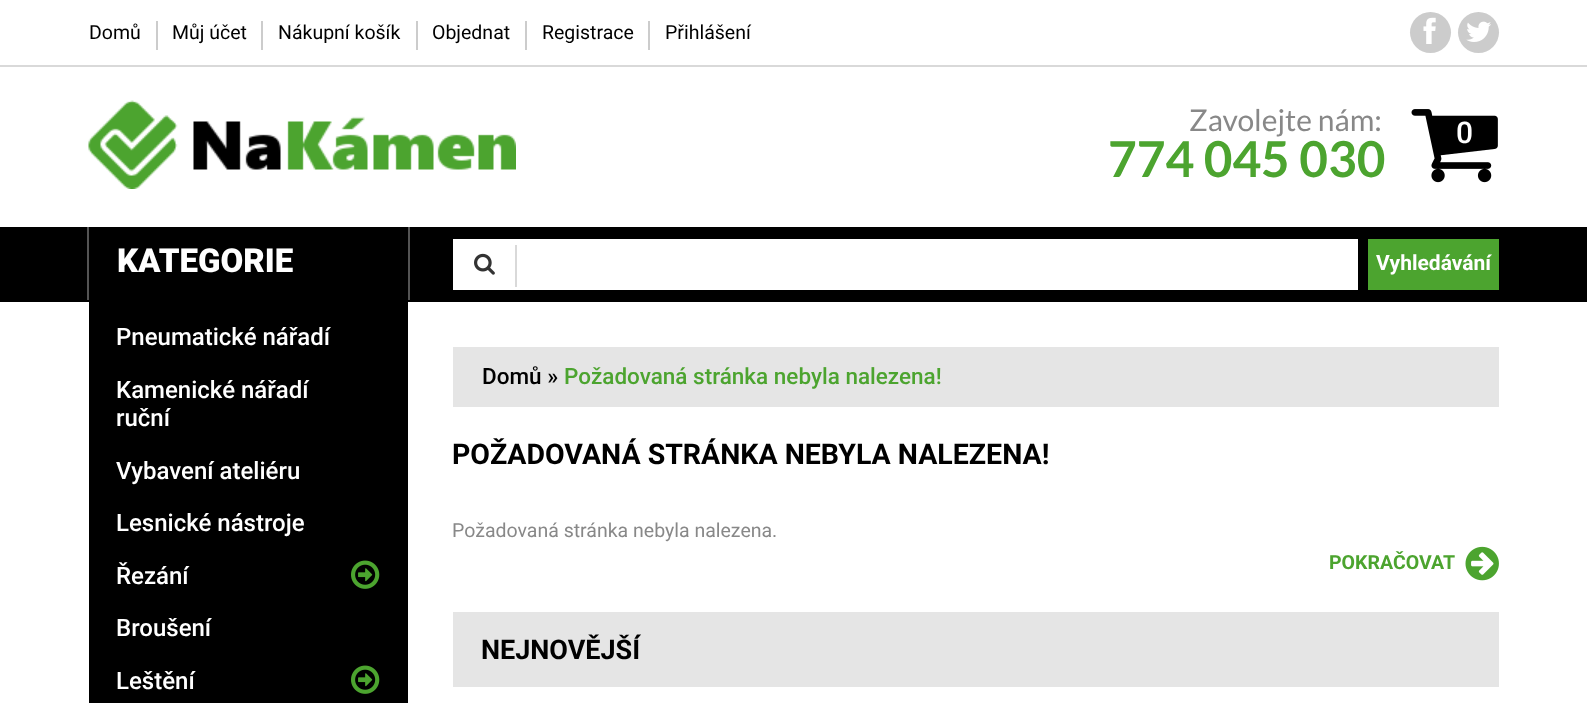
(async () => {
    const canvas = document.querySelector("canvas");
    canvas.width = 1587;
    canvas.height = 703;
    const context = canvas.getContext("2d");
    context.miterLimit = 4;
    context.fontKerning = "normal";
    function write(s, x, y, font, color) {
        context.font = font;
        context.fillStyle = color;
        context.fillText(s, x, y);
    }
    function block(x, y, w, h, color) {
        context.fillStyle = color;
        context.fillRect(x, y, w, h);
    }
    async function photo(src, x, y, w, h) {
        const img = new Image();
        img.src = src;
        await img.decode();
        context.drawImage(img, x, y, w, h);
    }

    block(0, 0, 1587, 703, "rgb(255, 255, 255)");
    block(0, 65, 1587, 2, "rgb(217, 217, 217)");
    write("Domů", 89, 39, "19.5px Roboto", "rgb(0, 0, 0)");
    block(156, 21, 2, 29, "rgb(204, 204, 204)");
    write("Můj účet", 172, 39, "19.5px Roboto", "rgb(0, 0, 0)");
    block(261, 21, 2, 29, "rgb(204, 204, 204)");
    write("Nákupní košík", 278, 39, "19.5px Roboto", "rgb(0, 0, 0)");
    block(416, 21, 2, 29, "rgb(204, 204, 204)");
    write("Objednat", 432, 39, "19.5px Roboto", "rgb(0, 0, 0)");
    block(525, 21, 2, 29, "rgb(204, 204, 204)");
    write("Registrace", 542, 39, "19.5px Roboto", "rgb(0, 0, 0)");
    block(648, 21, 2, 29, "rgb(204, 204, 204)");
    write("Přihlášení", 665, 39, "19.5px Roboto", "rgb(0, 0, 0)");
    context.fillStyle = "rgb(204, 204, 204)";
    context.beginPath();
    context.arc(1430.5, 32.5, 20.5, 0, Math.PI * 2);
    context.fill();
    await photo("media/1.png", 1423, 17, 13, 27);
    context.beginPath();
    context.arc(1478.5, 32.5, 20.5, 0, Math.PI * 2);
    context.fill();
    await photo("media/2.png", 1466, 21, 25, 21);
    await photo("media/3.png", 88, 100, 428, 89);
    write("Zavolejte nám:", 1189, 131, "30px Lato", "rgb(136, 136, 136)");
    write("774 045 030", 1108, 177, "bold 49.5px Lato", "rgb(76, 164, 47)");
    await photo("media/4.png", 1411, 109, 87, 74);
    write("0", 1456, 143, "500 30px Roboto", "rgb(255, 255, 255)");
    block(0, 227, 1587, 75, "rgb(0, 0, 0)");
    block(453, 239, 905, 51, "rgb(255, 255, 255)");
    block(515, 245, 2, 42, "rgb(217, 217, 217)");
    await photo("media/5.png", 474, 253, 21, 22);
    block(1368, 239, 131, 51, "rgb(76, 164, 47)");
    write("Vyhledávání", 1376, 270, "bold 21px Roboto", "rgb(255, 255, 255)");
    block(89, 302, 319, 401, "rgb(0, 0, 0)");
    block(87, 227, 2, 73, "rgb(84, 84, 84)");
    write("KATEGORIE", 117, 272, "900 33px Roboto", "rgb(255, 255, 255)");
    block(408, 227, 2, 73, "rgb(84, 84, 84)");
    write("Pneumatické nářadí", 116, 345, "500 24px Roboto", "rgb(255, 255, 255)");
    write("Kamenické nářadí", 116, 398, "500 24px Roboto", "rgb(255, 255, 255)");
    write("ruční", 116, 426, "500 24px Roboto", "rgb(255, 255, 255)");
    write("Vybavení ateliéru", 116, 479, "500 24px Roboto", "rgb(255, 255, 255)");
    write("Lesnické nástroje", 116, 531, "500 24px Roboto", "rgb(255, 255, 255)");
    write("Řezání", 116, 584, "500 24px Roboto", "rgb(255, 255, 255)");
    await photo("media/6.png", 351, 560, 29, 29);
    write("Broušení", 116, 636, "500 24px Roboto", "rgb(255, 255, 255)");
    write("Leštění", 116, 689, "500 24px Roboto", "rgb(255, 255, 255)");
    await photo("media/6.png", 351, 665, 29, 29);
    block(453, 347, 1046, 60, "rgb(229, 229, 229)");
    write("Domů »", 482, 384, "500 22.5px Roboto", "rgb(0, 0, 0)");
    write("Požadovaná stránka nebyla nalezena!", 564, 384, "500 22.5px Roboto", "rgb(76, 164, 47)");
    write("POŽADOVANÁ STRÁNKA NEBYLA NALEZENA!", 452, 464, "bold 28.5px Roboto", "rgb(0, 0, 0)");
    write("Požadovaná stránka nebyla nalezena.", 452, 537, "19.5px Roboto", "rgb(136, 136, 136)");
    write("POKRAČOVAT", 1329, 569, "bold 19.5px Roboto", "rgb(76, 164, 47)");
    await photo("media/7.png", 1465, 546, 34, 35);
    block(453, 612, 1046, 75, "rgb(229, 229, 229)");
    write("NEJNOVĚJŠÍ", 481, 659, "bold 27px Roboto", "rgb(0, 0, 0)");
})();
